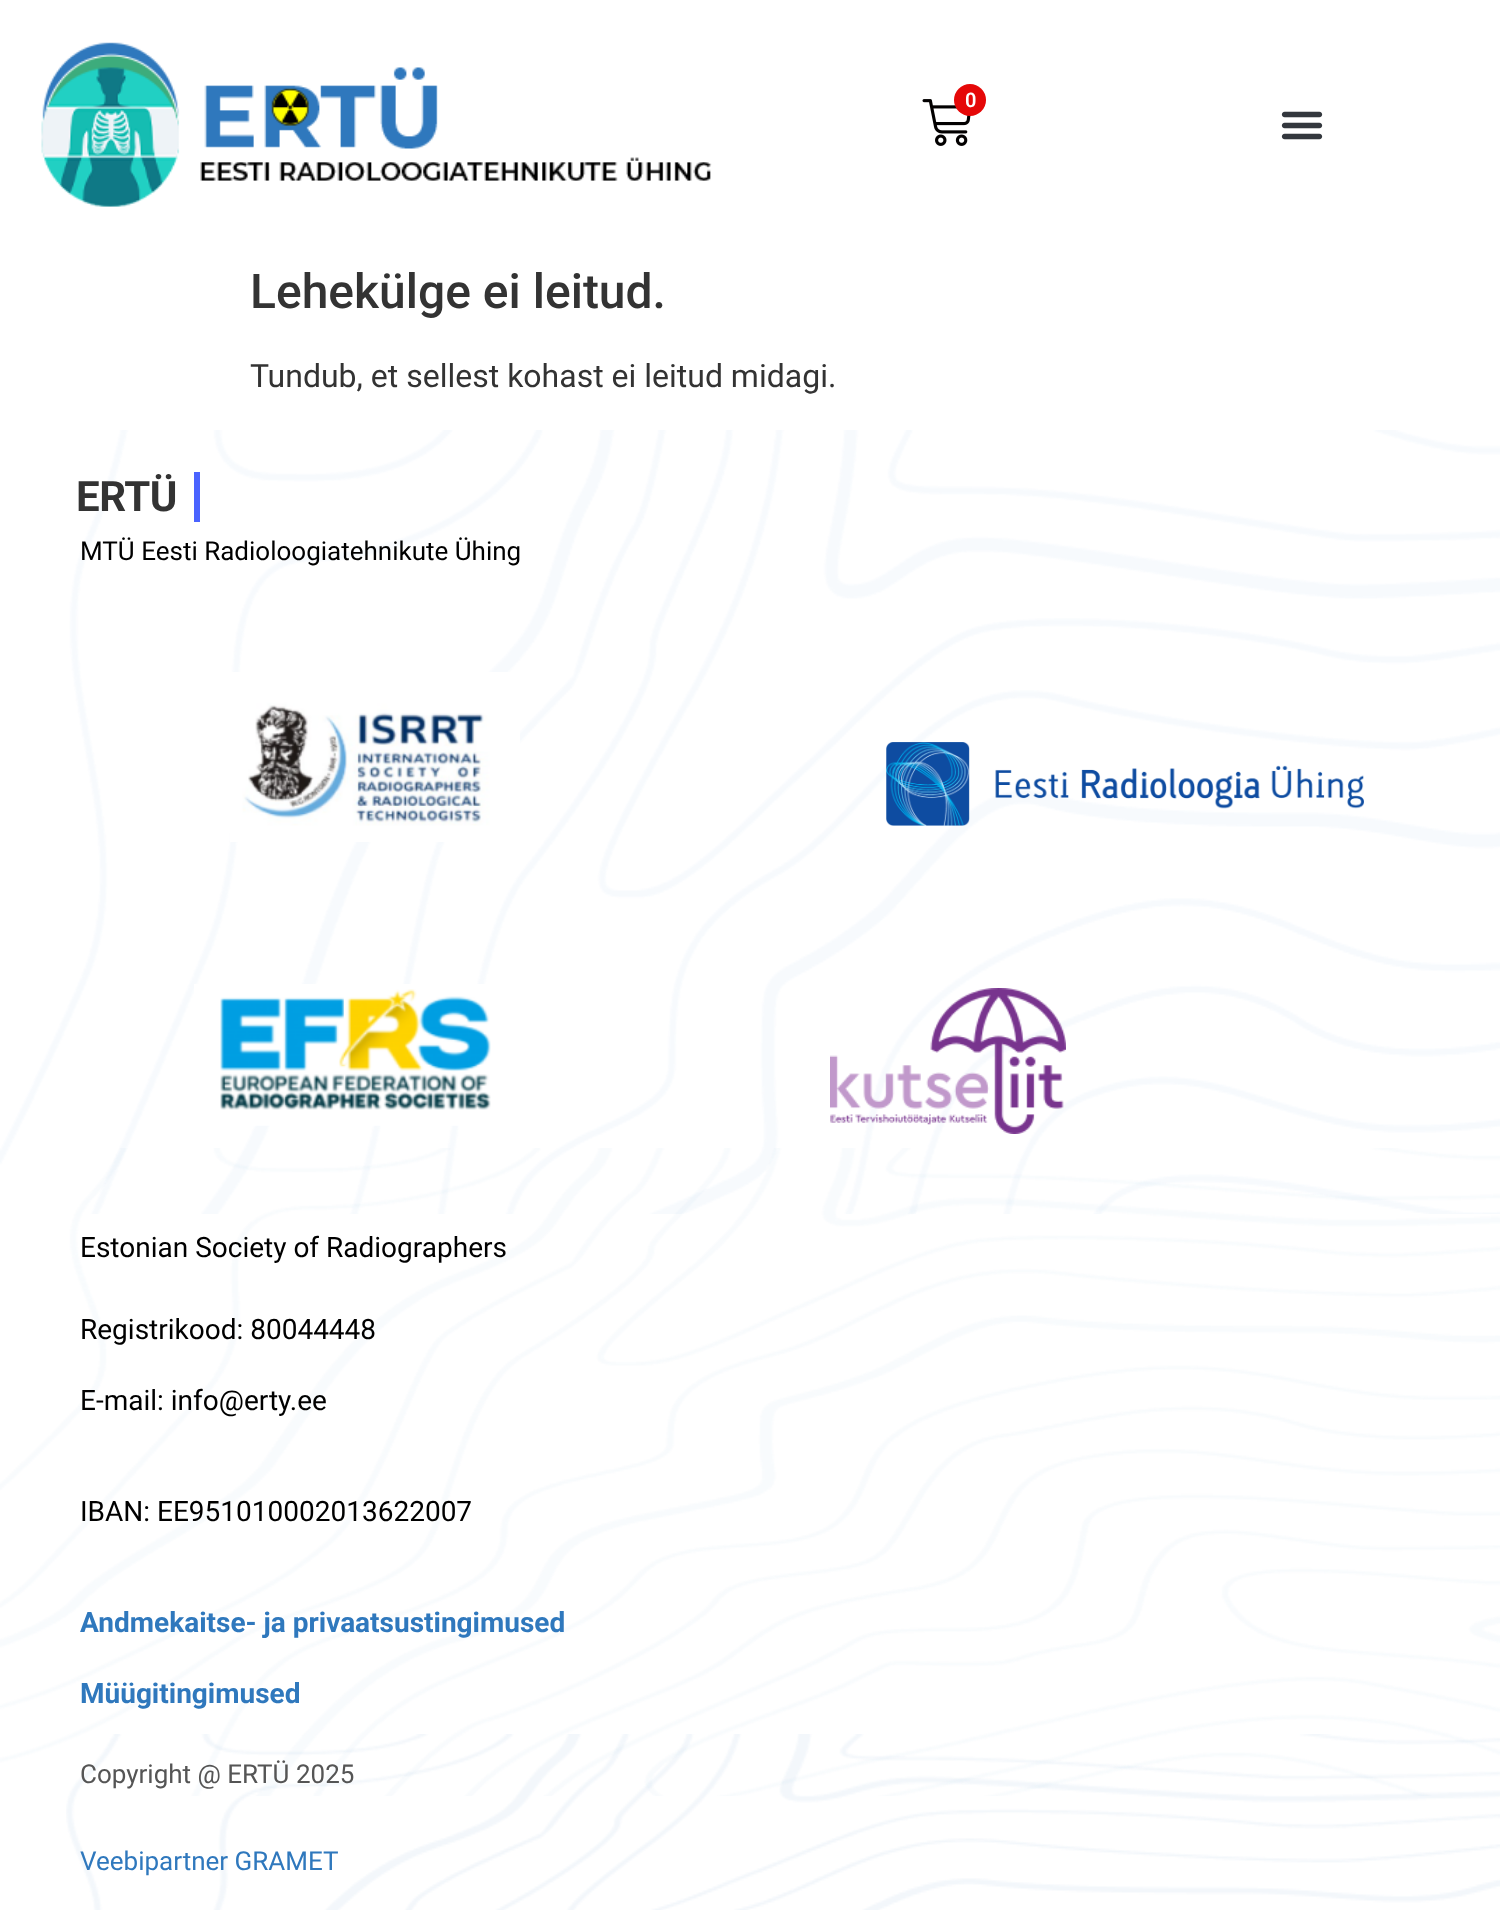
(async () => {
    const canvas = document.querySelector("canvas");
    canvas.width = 1500;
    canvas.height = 1929;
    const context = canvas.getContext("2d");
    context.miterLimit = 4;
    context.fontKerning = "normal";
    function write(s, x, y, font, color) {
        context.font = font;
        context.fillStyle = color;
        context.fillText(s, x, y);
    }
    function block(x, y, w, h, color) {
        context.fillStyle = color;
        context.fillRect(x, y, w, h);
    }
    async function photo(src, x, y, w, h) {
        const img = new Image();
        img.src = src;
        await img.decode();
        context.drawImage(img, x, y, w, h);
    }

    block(0, 0, 1500, 1929, "rgb(255, 255, 255)");
    await photo("media/1.png", 41, 42, 671, 165);
    await photo("media/2.png", 922, 99, 49, 47);
    context.fillStyle = "rgb(229, 8, 8)";
    context.beginPath();
    context.arc(970, 100, 16, 0, Math.PI * 2);
    context.fill();
    write("0", 965, 107, "600 20px Roboto", "rgb(255, 255, 255)");
    await photo("media/3.png", 1281, 111, 42, 29);
    write("Lehekülge ei leitud.", 250, 308, "500 48px Roboto", "rgb(51, 51, 51)");
    write("Tundub, et sellest kohast ei leitud midagi.", 250, 387, "32px Roboto", "rgb(51, 51, 51)");
    await photo("media/4.png", 0, 430, 1500, 784);
    context.letterSpacing = "-0.5px";
    write("ERTÜ", 76, 511, "bold 42px Roboto", "rgb(51, 51, 51)");
    block(194, 472, 6, 50, "rgb(74, 99, 255)");
    context.letterSpacing = "0px";
    write("MTÜ Eesti Radioloogiatehnikute Ühing", 80, 560, "26px Roboto", "rgb(0, 0, 0)");
    await photo("media/5.png", 230, 672, 290, 170);
    await photo("media/6.png", 886, 742, 478, 84);
    await photo("media/7.png", 194, 984, 297, 142);
    await photo("media/8.png", 830, 988, 236, 146);
    await photo("media/9.png", 0, 1148, 1500, 648);
    write("Estonian Society of Radiographers", 80, 1257, "28px Roboto", "rgb(0, 0, 0)");
    write("Registrikood: 80044448", 80, 1339, "28px Roboto", "rgb(0, 0, 0)");
    write("E-mail: info@erty.ee", 80, 1410, "28px Roboto", "rgb(0, 0, 0)");
    write("IBAN: EE951010002013622007", 80, 1521, "28px Roboto", "rgb(0, 0, 0)");
    write("Andmekaitse- ja privaatsustingimused", 80, 1632, "bold 28px Roboto", "rgb(47, 120, 189)");
    write("Müügitingimused", 80, 1703, "bold 28px Roboto", "rgb(47, 120, 189)");
    await photo("media/10.png", 66, 1734, 1434, 176);
    write("Copyright @ ERTÜ 2025", 80, 1783, "26px Roboto", "rgb(85, 85, 85)");
    write("Veebipartner GRAMET", 80, 1870, "26px Roboto", "rgb(47, 120, 189)");
})();
